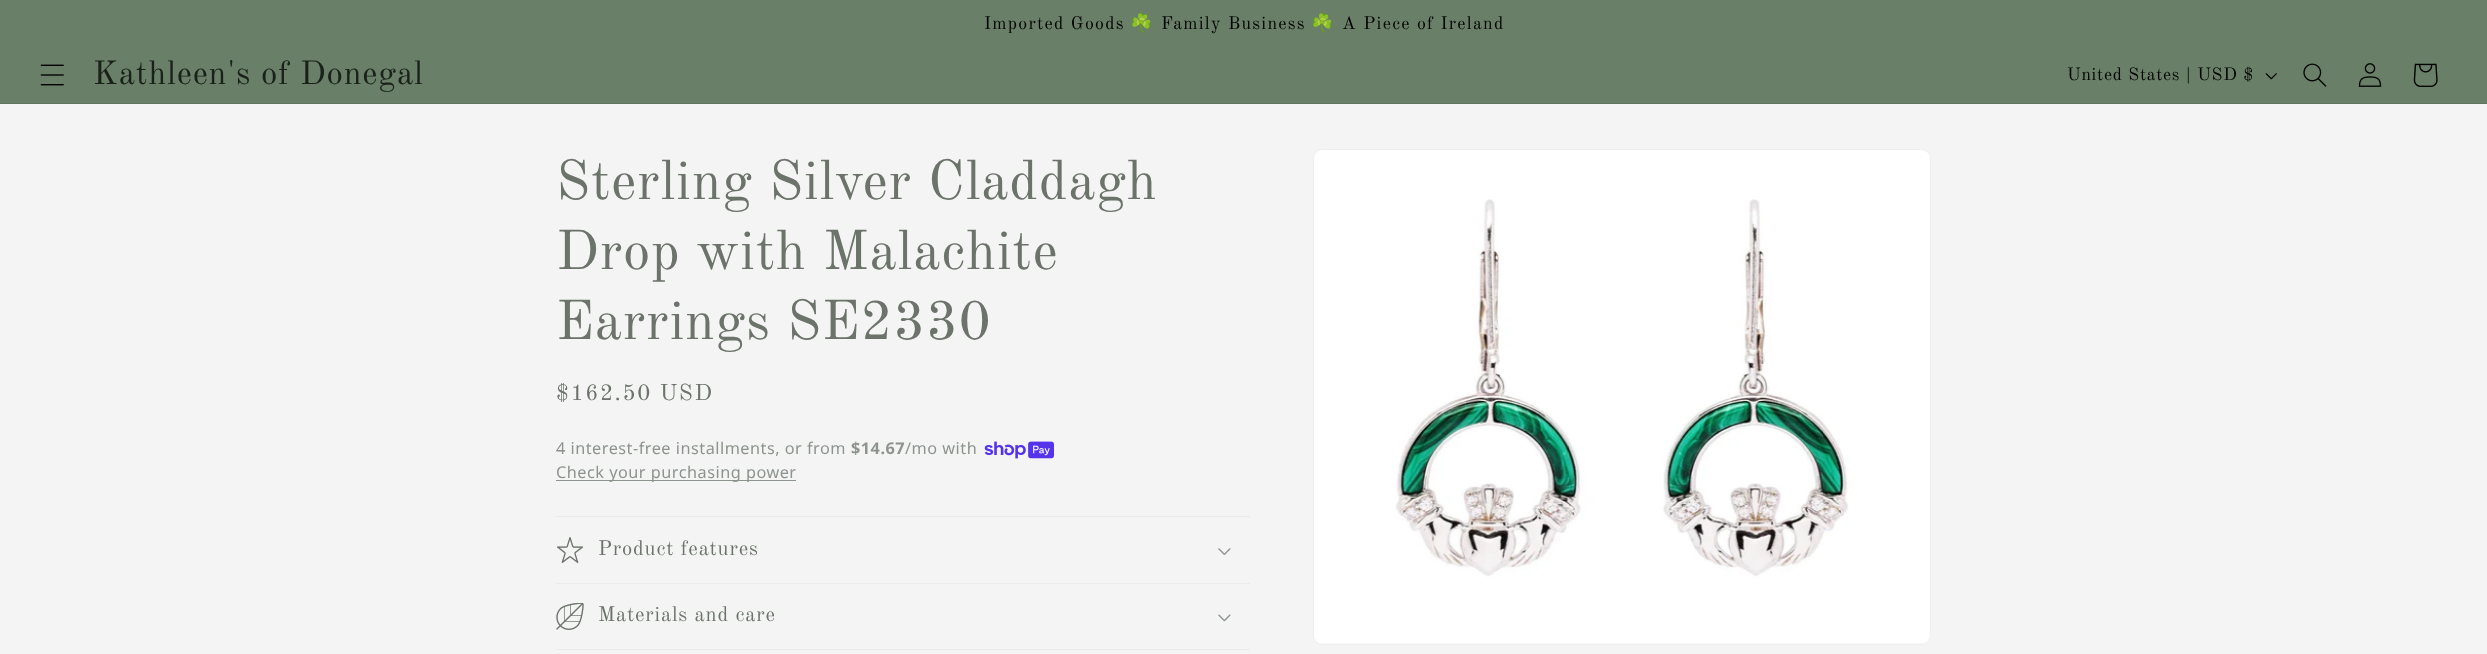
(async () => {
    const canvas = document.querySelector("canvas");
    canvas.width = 2487;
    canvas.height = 654;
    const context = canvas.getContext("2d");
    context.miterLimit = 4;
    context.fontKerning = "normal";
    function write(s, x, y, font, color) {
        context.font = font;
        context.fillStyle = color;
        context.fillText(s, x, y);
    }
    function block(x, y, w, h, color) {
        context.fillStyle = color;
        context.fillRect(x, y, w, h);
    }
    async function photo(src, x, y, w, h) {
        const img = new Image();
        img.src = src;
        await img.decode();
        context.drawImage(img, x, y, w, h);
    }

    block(0, 0, 2487, 654, "rgb(244, 244, 244)");
    block(0, 0, 2487, 103, "rgb(105, 127, 103)");
    context.letterSpacing = "1.25px";
    write("Imported Goods", 984, 29, "17.9px Old Standard TT", "rgb(0, 0, 0)");
    write("☘️", 1130, 29, "17.9px Noto Color Emoji", "rgb(0, 0, 0)");
    write("Family Business", 1161, 29, "17.9px Old Standard TT", "rgb(0, 0, 0)");
    write("☘️", 1311, 29, "17.9px Noto Color Emoji", "rgb(0, 0, 0)");
    write("A Piece of Ireland", 1342, 29, "17.9px Old Standard TT", "rgb(0, 0, 0)");
    block(0, 103, 2487, 1, "rgb(97, 117, 95)");
    await photo("media/1.png", 40, 64, 24, 22);
    context.letterSpacing = "0.8px";
    write("Kathleen's of Donegal", 93, 84, "33px Old Standard TT", "rgb(26, 32, 26)");
    context.letterSpacing = "0.75px";
    write("United States | USD $", 2067, 80, "17.5px Old Standard TT", "rgb(0, 0, 0)");
    await photo("media/2.png", 2265, 73, 12, 7);
    await photo("media/3.png", 2303, 63, 24, 24);
    await photo("media/4.png", 2358, 63, 24, 24);
    await photo("media/5.png", 2413, 63, 25, 24);
    context.letterSpacing = "0.8px";
    write("Sterling Silver Claddagh", 556, 199, "55px Old Standard TT", "rgb(107, 115, 106)");
    write("Drop with Malachite", 556, 269, "55px Old Standard TT", "rgb(107, 115, 106)");
    write("Earrings SE2330", 556, 339, "55px Old Standard TT", "rgb(107, 115, 106)");
    context.letterSpacing = "1.6px";
    write("$162.50 USD", 556, 400, "22.5px Old Standard TT", "rgb(107, 115, 106)");
    context.letterSpacing = "0.5px";
    write("4 interest-free installments, or from", 556, 454, "16.25px Noto Sans", "rgb(141, 147, 141)");
    write("$14.67", 851, 454, "bold 16.25px Noto Sans", "rgb(141, 147, 141)");
    write("/mo with", 905, 454, "16.25px Noto Sans", "rgb(141, 147, 141)");
    await photo("media/6.png", 984, 441, 70, 18);
    block(556, 480, 240, 1, "rgb(141, 147, 141)");
    write("Check your purchasing power", 556, 478, "16.25px Noto Sans", "rgb(141, 147, 141)");
    block(556, 516, 694, 1, "rgb(233, 234, 233)");
    block(556, 583, 694, 1, "rgb(233, 234, 233)");
    await photo("media/7.png", 557, 537, 26, 26);
    context.letterSpacing = "0.8px";
    write("Product features", 598, 555, "20.6px Old Standard TT", "rgb(107, 115, 106)");
    await photo("media/8.png", 1218, 548, 13, 7);
    block(556, 649, 694, 1, "rgb(233, 234, 233)");
    await photo("media/9.png", 556, 603, 28, 27);
    write("Materials and care", 598, 621, "20.6px Old Standard TT", "rgb(107, 115, 106)");
    await photo("media/10.png", 1218, 614, 13, 8);
    context.beginPath();
    context.roundRect(1313.5, 149.5, 617, 495, 9.5);
    context.strokeStyle = "rgb(237, 238, 237)";
    context.stroke();
    await photo("media/11.png", 1314, 150, 616, 494);
})();
